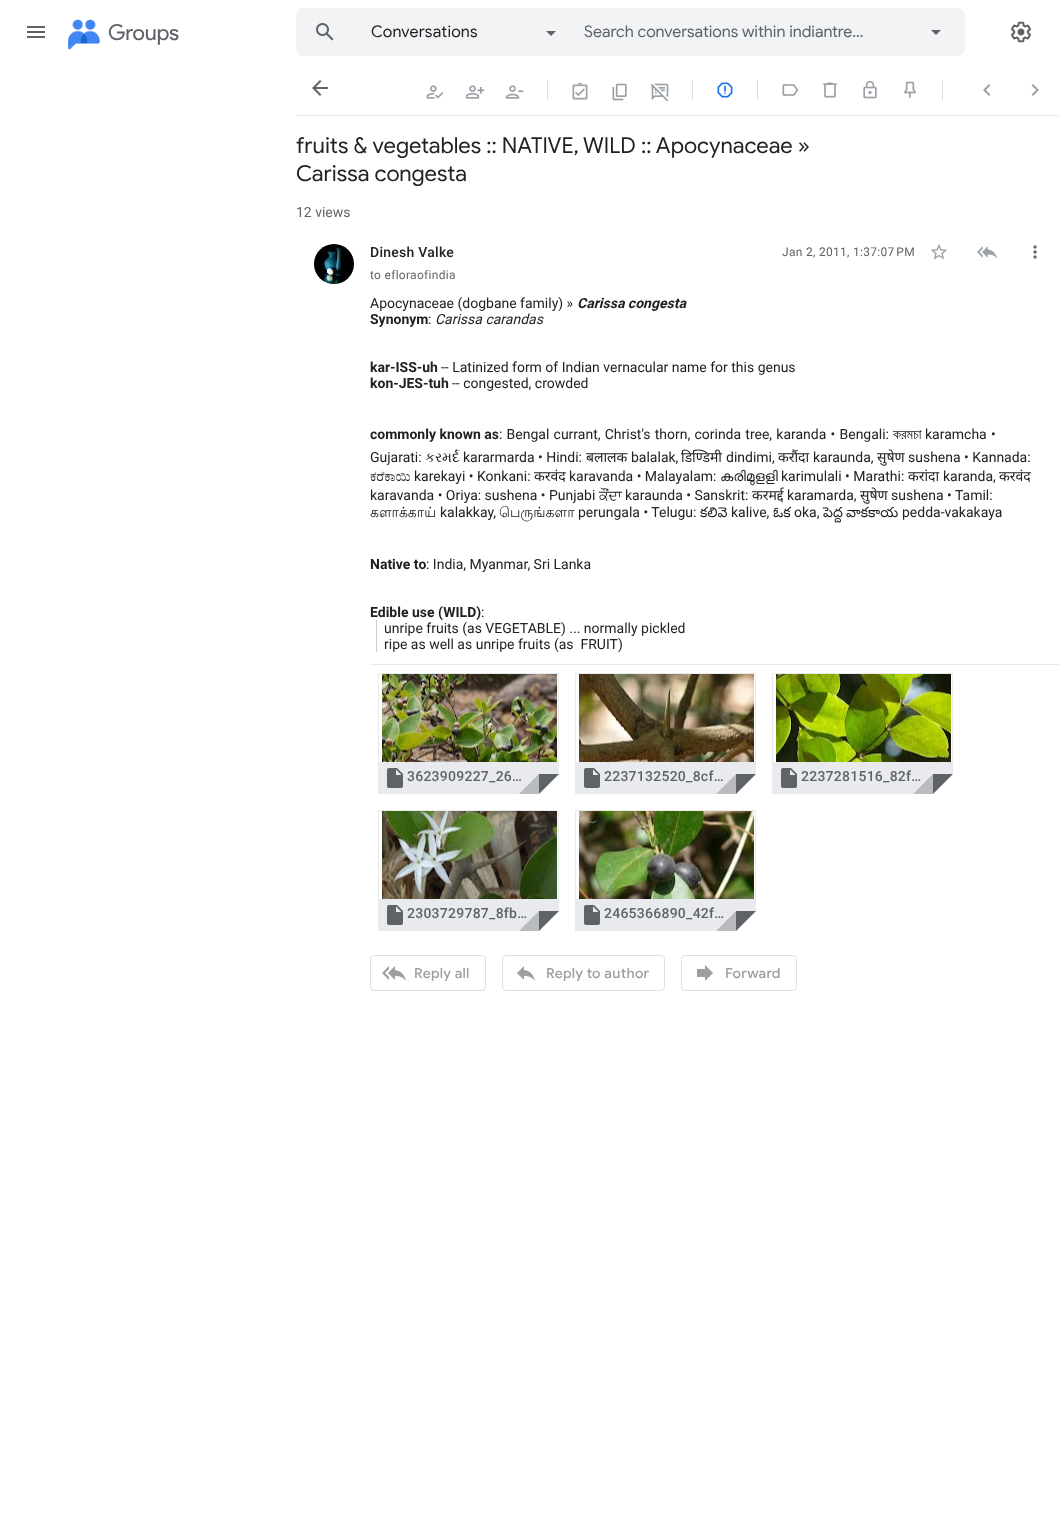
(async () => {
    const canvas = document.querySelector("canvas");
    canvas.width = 1059;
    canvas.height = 1522;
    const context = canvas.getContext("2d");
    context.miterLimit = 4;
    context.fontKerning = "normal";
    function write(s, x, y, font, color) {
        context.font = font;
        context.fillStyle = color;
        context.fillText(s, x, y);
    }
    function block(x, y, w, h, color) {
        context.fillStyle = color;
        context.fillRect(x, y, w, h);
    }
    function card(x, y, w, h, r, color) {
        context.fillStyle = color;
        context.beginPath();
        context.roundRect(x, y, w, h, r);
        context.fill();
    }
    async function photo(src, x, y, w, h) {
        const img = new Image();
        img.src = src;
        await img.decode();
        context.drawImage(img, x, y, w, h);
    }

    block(0, 0, 1059, 1522, "rgb(255, 255, 255)");
    await photo("media/1.png", 27, 26, 18, 12);
    await photo("media/2.png", 68, 19, 32, 31);
    write("Groups", 108, 40, "22px Product Sans", "rgb(95, 99, 104)");
    card(296, 8, 669, 48, 8, "rgb(241, 243, 244)");
    await photo("media/3.png", 316, 23, 18, 18);
    context.letterSpacing = "0.25px";
    write("Conversations", 371, 37, "16px Google Sans", "rgb(32, 33, 36)");
    context.fillStyle = "rgb(95, 99, 104)";
    context.beginPath();
    context.moveTo(546, 31);
    context.lineTo(556, 31);
    context.lineTo(551, 36);
    context.closePath();
    context.fill();
    context.letterSpacing = "0px";
    write("Search conversations within indiantre…", 584, 37, "16px Google Sans", "rgb(95, 99, 104)");
    context.beginPath();
    context.moveTo(931, 30);
    context.lineTo(936, 35);
    context.lineTo(941, 30);
    context.closePath();
    context.fill();
    await photo("media/4.png", 1011, 21, 20, 22);
    block(296, 115, 763, 1, "rgb(232, 234, 237)");
    await photo("media/5.png", 312, 80, 16, 16);
    await photo("media/6.png", 426, 85, 18, 14);
    await photo("media/7.png", 465, 85, 20, 14);
    await photo("media/8.png", 505, 85, 19, 14);
    block(547, 80, 1, 20, "rgb(221, 221, 221)");
    await photo("media/9.png", 572, 82, 16, 18);
    await photo("media/10.png", 612, 83, 15, 18);
    await photo("media/11.png", 650, 83, 19, 19);
    block(692, 80, 1, 20, "rgb(221, 221, 221)");
    await photo("media/12.png", 717, 82, 16, 16);
    block(757, 80, 1, 20, "rgb(221, 221, 221)");
    await photo("media/13.png", 782, 84, 17, 12);
    await photo("media/14.png", 823, 82, 14, 16);
    await photo("media/15.png", 863, 80, 14, 19);
    await photo("media/16.png", 904, 81, 12, 18);
    block(942, 80, 1, 20, "rgb(221, 221, 221)");
    await photo("media/17.png", 983, 84, 8, 12);
    await photo("media/18.png", 1031, 84, 8, 12);
    write("fruits & vegetables :: NATIVE, WILD :: Apocynaceae »", 296, 153, "22px Google Sans", "rgb(32, 33, 36)");
    write("Carissa congesta", 296, 181, "22px Google Sans", "rgb(32, 33, 36)");
    write("12 views", 296, 217, "14px Roboto", "rgb(95, 99, 104)");
    await photo("media/19.png", 314, 244, 40, 40);
    context.letterSpacing = "0.25px";
    write("Dinesh Valke", 370, 257, "500 14px Roboto", "rgb(32, 33, 36)");
    context.letterSpacing = "0.3px";
    write("Jan 2, 2011, 1:37:07 PM", 782, 256, "12px Roboto", "rgb(95, 99, 104)");
    await photo("media/20.png", 930, 244, 18, 16);
    await photo("media/21.png", 977, 246, 20, 13);
    await photo("media/22.png", 1033, 245, 4, 14);
    write("to efloraofindia", 370, 279, "12px Roboto", "rgb(95, 99, 104)");
    context.letterSpacing = "0px";
    write("Apocynaceae (dogbane family) »", 370, 308, "14px Roboto", "rgb(32, 33, 36)");
    write("Carissa congesta", 577, 308, "italic bold 14px Roboto", "rgb(32, 33, 36)");
    write("Synonym", 370, 324, "bold 14px Roboto", "rgb(32, 33, 36)");
    write(":", 428, 324, "14px Roboto", "rgb(32, 33, 36)");
    write("Carissa carandas", 435, 324, "italic 14px Roboto", "rgb(32, 33, 36)");
    write("kar-ISS-uh", 370, 372, "bold 14px Roboto", "rgb(32, 33, 36)");
    write("-- Latinized form of Indian vernacular name for this genus", 441, 372, "14px Roboto", "rgb(32, 33, 36)");
    write("kon-JES-tuh", 370, 388, "bold 14px Roboto", "rgb(32, 33, 36)");
    write("-- congested, crowded", 452, 388, "14px Roboto", "rgb(32, 33, 36)");
    write("commonly known as", 370, 439, "bold 14px Roboto", "rgb(32, 33, 36)");
    context.wordSpacing = "0.75px";
    write(": Bengal currant, Christ's thorn, corinda tree, karanda • Bengali:", 499, 439, "14px Roboto", "rgb(32, 33, 36)");
    context.wordSpacing = "0px";
    write("করমচা", 893, 439, "14px FreeSans", "rgb(32, 33, 36)");
    context.wordSpacing = "0.75px";
    write("karamcha •", 925, 439, "14px Roboto", "rgb(32, 33, 36)");
    context.wordSpacing = "0px";
    write("Gujarati:", 370, 462, "14px Roboto", "rgb(32, 33, 36)");
    write("કરમર્દ", 425, 462, "14px FreeSerif", "rgb(32, 33, 36)");
    write("kararmarda • Hindi:", 463, 462, "14px Roboto", "rgb(32, 33, 36)");
    write("बलालक", 586, 462, "14px Noto Sans", "rgb(32, 33, 36)");
    write("balalak,", 631, 462, "14px Roboto", "rgb(32, 33, 36)");
    write("डिण्डिमी", 681, 462, "14px Noto Sans", "rgb(32, 33, 36)");
    write("dindimi,", 726, 462, "14px Roboto", "rgb(32, 33, 36)");
    write("करौंदा", 778, 462, "14px Noto Sans", "rgb(32, 33, 36)");
    write("karaunda,", 813, 462, "14px Roboto", "rgb(32, 33, 36)");
    write("सुषेण", 877, 462, "14px Noto Sans", "rgb(32, 33, 36)");
    write("sushena • Kannada:", 908, 462, "14px Roboto", "rgb(32, 33, 36)");
    write("ಕರೆಕಾಯಿ", 370, 481, "14px FreeSerif", "rgb(32, 33, 36)");
    write("karekayi • Konkani:", 414, 481, "14px Roboto", "rgb(32, 33, 36)");
    write("करवंद", 534, 481, "14px Noto Sans", "rgb(32, 33, 36)");
    write("karavanda • Malayalam:", 569, 481, "14px Roboto", "rgb(32, 33, 36)");
    write("കരിമുളളി", 720, 481, "14px FreeSans", "rgb(32, 33, 36)");
    write("karimulali • Marathi:", 781, 481, "14px Roboto", "rgb(32, 33, 36)");
    write("करांदा", 908, 481, "14px Noto Sans", "rgb(32, 33, 36)");
    write("karanda,", 943, 481, "14px Roboto", "rgb(32, 33, 36)");
    write("करवंद", 999, 481, "14px Noto Sans", "rgb(32, 33, 36)");
    write("karavanda • Oriya: sushena • Punjabi", 370, 500, "14px Roboto", "rgb(32, 33, 36)");
    write("ਕੌਂਦਾ", 599, 500, "14px FreeSans", "rgb(32, 33, 36)");
    write("karaunda • Sanskrit:", 625, 500, "14px Roboto", "rgb(32, 33, 36)");
    write("करमर्द्द", 752, 500, "14px Noto Sans", "rgb(32, 33, 36)");
    write("karamarda,", 787, 500, "14px Roboto", "rgb(32, 33, 36)");
    write("सुषेण", 860, 500, "14px Noto Sans", "rgb(32, 33, 36)");
    write("sushena • Tamil:", 891, 500, "14px Roboto", "rgb(32, 33, 36)");
    write("களாக்காய்", 370, 517, "14px Lohit Tamil", "rgb(32, 33, 36)");
    write("kalakkay,", 440, 517, "14px Roboto", "rgb(32, 33, 36)");
    write("பெருங்களா", 499, 517, "14px Lohit Tamil", "rgb(32, 33, 36)");
    write("perungala • Telugu:", 578, 517, "14px Roboto", "rgb(32, 33, 36)");
    write("కలివె", 700, 517, "14px Noto Sans Telugu", "rgb(32, 33, 36)");
    write("kalive,", 731, 517, "14px Roboto", "rgb(32, 33, 36)");
    write("ఓక", 773, 517, "14px Noto Sans Telugu", "rgb(32, 33, 36)");
    write("oka,", 794, 517, "14px Roboto", "rgb(32, 33, 36)");
    write("పెద్ద", 823, 517, "14px Noto Sans Telugu", "rgb(32, 33, 36)");
    write("వాకకాయ", 846, 517, "14px Noto Sans Telugu", "rgb(32, 33, 36)");
    write("pedda-vakakaya", 902, 517, "14px Roboto", "rgb(32, 33, 36)");
    write("Native to", 370, 569, "bold 14px Roboto", "rgb(32, 33, 36)");
    write(": India, Myanmar, Sri Lanka", 426, 569, "14px Roboto", "rgb(32, 33, 36)");
    block(376, 620, 1, 32, "rgb(204, 204, 204)");
    write("Edible use (WILD)", 370, 617, "bold 14px Roboto", "rgb(32, 33, 36)");
    write(":", 481, 617, "14px Roboto", "rgb(32, 33, 36)");
    write("unripe fruits (as VEGETABLE) ... normally pickled", 384, 633, "14px Roboto", "rgb(32, 33, 36)");
    write("ripe as well as unripe fruits (as  FRUIT)", 384, 649, "14px Roboto", "rgb(32, 33, 36)");
    block(370, 664, 689, 1, "rgb(232, 234, 237)");
    await photo("media/23.png", 382, 674, 175, 88);
    block(378, 673, 181, 1, "rgb(232, 234, 237)");
    block(378, 673, 1, 121, "rgb(232, 234, 237)");
    block(558, 674, 1, 100, "rgb(232, 234, 237)");
    block(379, 762, 179, 32, "rgb(232, 234, 237)");
    await photo("media/24.png", 387, 768, 16, 20);
    context.letterSpacing = "0.25px";
    write("3623909227_26…", 407, 781, "500 14px Roboto", "rgb(95, 99, 104)");
    context.fillStyle = "rgb(186, 187, 190)";
    context.beginPath();
    context.moveTo(519, 794);
    context.lineTo(539, 794);
    context.lineTo(539, 774);
    context.closePath();
    context.fill();
    block(539, 774, 20, 20, "rgb(95, 99, 104)");
    context.fillStyle = "rgb(255, 255, 255)";
    context.beginPath();
    context.moveTo(539, 794);
    context.lineTo(559, 794);
    context.lineTo(559, 774);
    context.closePath();
    context.fill();
    await photo("media/25.png", 579, 674, 175, 88);
    block(575, 673, 181, 1, "rgb(232, 234, 237)");
    block(575, 673, 1, 121, "rgb(232, 234, 237)");
    block(755, 674, 1, 100, "rgb(232, 234, 237)");
    block(576, 762, 179, 32, "rgb(232, 234, 237)");
    await photo("media/24.png", 584, 768, 16, 20);
    write("2237132520_8cf…", 604, 781, "500 14px Roboto", "rgb(95, 99, 104)");
    context.fillStyle = "rgb(186, 187, 190)";
    context.beginPath();
    context.moveTo(716, 794);
    context.lineTo(736, 794);
    context.lineTo(736, 774);
    context.closePath();
    context.fill();
    block(736, 774, 20, 20, "rgb(95, 99, 104)");
    context.fillStyle = "rgb(255, 255, 255)";
    context.beginPath();
    context.moveTo(736, 794);
    context.lineTo(756, 794);
    context.lineTo(756, 774);
    context.closePath();
    context.fill();
    await photo("media/26.png", 776, 674, 175, 88);
    block(772, 673, 181, 1, "rgb(232, 234, 237)");
    block(772, 673, 1, 121, "rgb(232, 234, 237)");
    block(952, 674, 1, 100, "rgb(232, 234, 237)");
    block(773, 762, 179, 32, "rgb(232, 234, 237)");
    await photo("media/24.png", 781, 768, 16, 20);
    write("2237281516_82f…", 801, 781, "500 14px Roboto", "rgb(95, 99, 104)");
    context.fillStyle = "rgb(186, 187, 190)";
    context.beginPath();
    context.moveTo(913, 794);
    context.lineTo(933, 794);
    context.lineTo(933, 774);
    context.closePath();
    context.fill();
    block(933, 774, 20, 20, "rgb(95, 99, 104)");
    context.fillStyle = "rgb(255, 255, 255)";
    context.beginPath();
    context.moveTo(933, 794);
    context.lineTo(953, 794);
    context.lineTo(953, 774);
    context.closePath();
    context.fill();
    await photo("media/27.png", 382, 811, 175, 88);
    block(378, 810, 181, 1, "rgb(232, 234, 237)");
    block(378, 810, 1, 121, "rgb(232, 234, 237)");
    block(558, 811, 1, 100, "rgb(232, 234, 237)");
    block(379, 899, 179, 32, "rgb(232, 234, 237)");
    await photo("media/24.png", 387, 905, 16, 20);
    write("2303729787_8fb…", 407, 918, "500 14px Roboto", "rgb(95, 99, 104)");
    context.fillStyle = "rgb(186, 187, 190)";
    context.beginPath();
    context.moveTo(519, 931);
    context.lineTo(539, 931);
    context.lineTo(539, 911);
    context.closePath();
    context.fill();
    block(539, 911, 20, 20, "rgb(95, 99, 104)");
    context.fillStyle = "rgb(255, 255, 255)";
    context.beginPath();
    context.moveTo(539, 931);
    context.lineTo(559, 931);
    context.lineTo(559, 911);
    context.closePath();
    context.fill();
    await photo("media/28.png", 579, 811, 175, 88);
    block(575, 810, 181, 1, "rgb(232, 234, 237)");
    block(575, 810, 1, 121, "rgb(232, 234, 237)");
    block(755, 811, 1, 100, "rgb(232, 234, 237)");
    block(576, 899, 179, 32, "rgb(232, 234, 237)");
    await photo("media/24.png", 584, 905, 16, 20);
    write("2465366890_42f…", 604, 918, "500 14px Roboto", "rgb(95, 99, 104)");
    context.fillStyle = "rgb(186, 187, 190)";
    context.beginPath();
    context.moveTo(716, 931);
    context.lineTo(736, 931);
    context.lineTo(736, 911);
    context.closePath();
    context.fill();
    block(736, 911, 20, 20, "rgb(95, 99, 104)");
    context.fillStyle = "rgb(255, 255, 255)";
    context.beginPath();
    context.moveTo(736, 931);
    context.lineTo(756, 931);
    context.lineTo(756, 911);
    context.closePath();
    context.fill();
    context.beginPath();
    context.roundRect(370.5, 955.5, 115, 35, 3.5);
    context.strokeStyle = "rgb(224, 224, 224)";
    context.stroke();
    await photo("media/29.png", 382, 966, 24, 15);
    write("Reply all", 414, 978, "500 14px Google Sans", "rgb(158, 158, 158)");
    context.beginPath();
    context.roundRect(502.5, 955.5, 162, 35, 3.5);
    context.stroke();
    await photo("media/30.png", 517, 966, 18, 15);
    write("Reply to author", 546, 978, "500 14px Google Sans", "rgb(158, 158, 158)");
    context.beginPath();
    context.roundRect(681.5, 955.5, 115, 35, 3.5);
    context.stroke();
    await photo("media/31.png", 697, 965, 16, 16);
    write("Forward", 725, 978, "500 14px Google Sans", "rgb(158, 158, 158)");
})();
